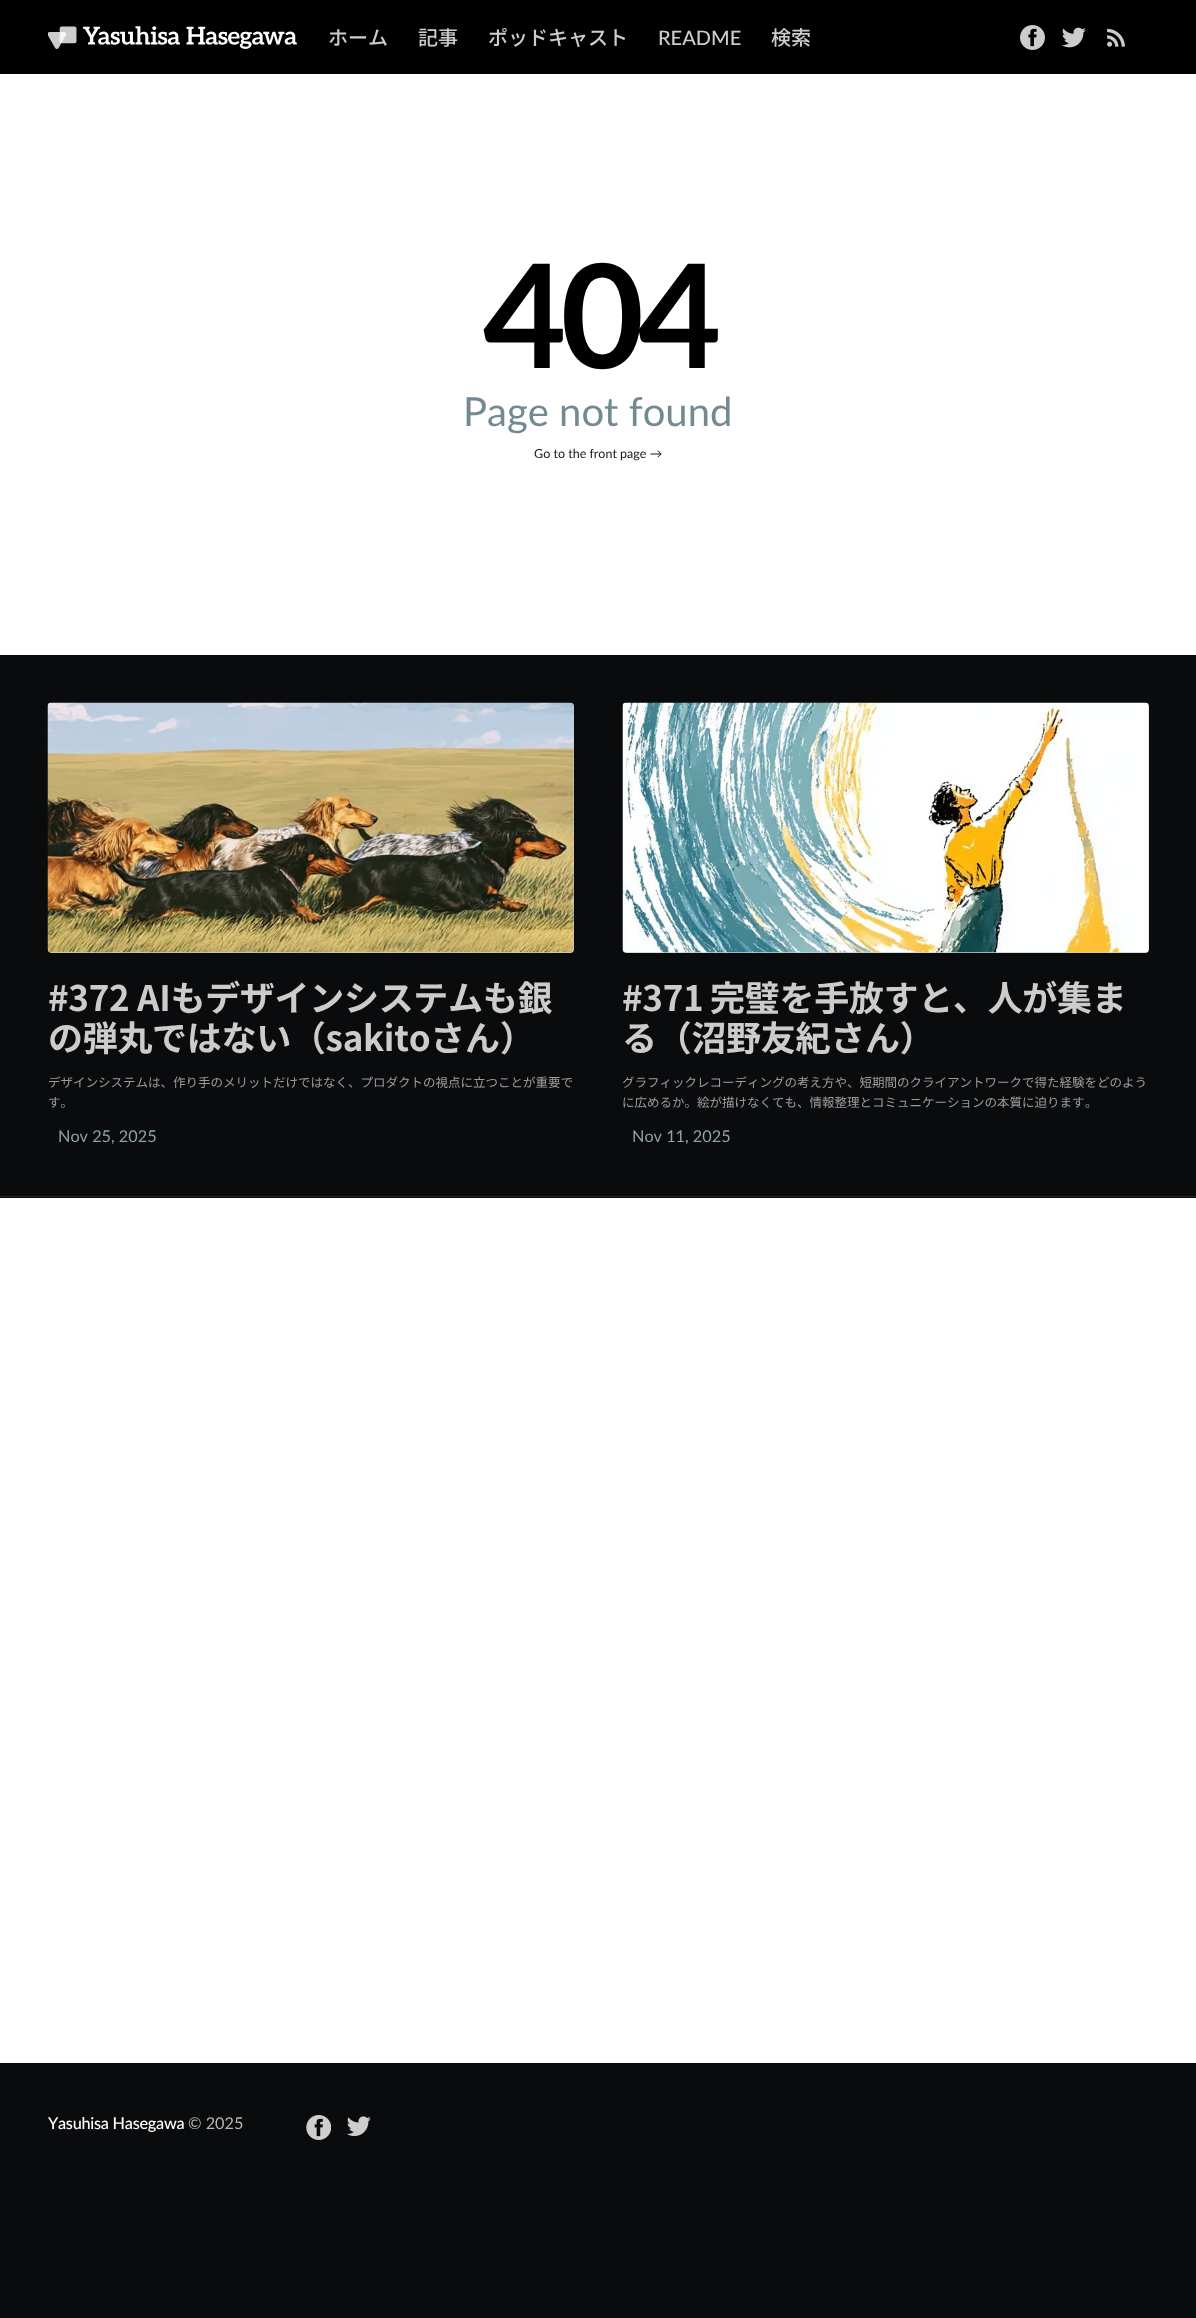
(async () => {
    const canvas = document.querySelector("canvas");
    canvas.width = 1196;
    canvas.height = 2318;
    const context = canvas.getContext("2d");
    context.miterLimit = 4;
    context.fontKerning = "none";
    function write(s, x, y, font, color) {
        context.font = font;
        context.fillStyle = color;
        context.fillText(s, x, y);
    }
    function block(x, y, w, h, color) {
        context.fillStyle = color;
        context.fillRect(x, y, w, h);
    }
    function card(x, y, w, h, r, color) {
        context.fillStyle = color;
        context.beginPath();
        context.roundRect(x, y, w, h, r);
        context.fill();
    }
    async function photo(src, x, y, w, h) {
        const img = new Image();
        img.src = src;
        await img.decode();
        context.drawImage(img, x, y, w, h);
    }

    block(0, 0, 1196, 2318, "rgb(255, 255, 255)");
    block(0, 0, 1196, 74, "rgb(0, 0, 0)");
    await photo("media/1.png", 48, 26, 249, 23);
    write("ホーム", 328, 45, "500 20px Noto Sans JP", "rgb(204, 204, 204)");
    write("記事", 418, 45, "500 20px Noto Sans JP", "rgb(204, 204, 204)");
    write("ポッドキャスト", 488, 45, "500 20px Noto Sans JP", "rgb(204, 204, 204)");
    write("README", 658, 45, "500 20px Lato", "rgb(204, 204, 204)");
    write("検索", 771, 45, "500 20px Noto Sans JP", "rgb(204, 204, 204)");
    await photo("media/2.png", 1020, 25, 25, 25);
    await photo("media/3.png", 1061, 27, 25, 21);
    await photo("media/4.png", 1107, 28, 18, 19);
    context.letterSpacing = "-6px";
    write("404", 483, 368, "bold 144px Lato", "rgb(0, 0, 0)");
    context.letterSpacing = "0px";
    write("Page not found", 463, 426, "40px Lato", "rgb(115, 138, 148)");
    write("Go to the front page →", 534, 458, "12.5px Lato", "rgb(21, 23, 26)");
    block(0, 655, 1196, 543, "rgb(10, 11, 12)");
    block(0, 1196, 1196, 1, "rgb(35, 35, 36)");
    card(48, 703, 526, 250, 4, "rgb(197, 210, 217)");
    await photo("media/5.png", 47, 702, 527, 251);
    context.letterSpacing = "-0.3px";
    write("#372 AIもデザインシステムも銀", 48, 1011, "bold 35px Noto Sans JP", "rgb(204, 204, 204)");
    write("の弾丸ではない（sakitoさん）", 48, 1051, "bold 35px Noto Sans JP", "rgb(204, 204, 204)");
    context.letterSpacing = "0px";
    write("デザインシステムは、作り手のメリットだけではなく、プロダクトの視点に立つことが重要で", 48, 1087, "12.5px Noto Sans JP", "rgb(157, 157, 158)");
    write("す。", 48, 1107, "12.5px Noto Sans JP", "rgb(157, 157, 158)");
    write("Nov 25, 2025", 58, 1142, "16.25px Lato", "rgb(144, 162, 170)");
    card(623, 703, 526, 250, 4, "rgb(197, 210, 217)");
    await photo("media/6.png", 622, 702, 527, 251);
    context.letterSpacing = "-0.3px";
    context.wordSpacing = "-1px";
    write("#371 完璧を手放すと、人が集ま", 622, 1011, "bold 35px Noto Sans JP", "rgb(204, 204, 204)");
    context.wordSpacing = "0px";
    write("る（沼野友紀さん）", 622, 1051, "bold 35px Noto Sans JP", "rgb(204, 204, 204)");
    context.letterSpacing = "0px";
    write("グラフィックレコーディングの考え方や、短期間のクライアントワークで得た経験をどのよう", 622, 1087, "12.5px Noto Sans JP", "rgb(157, 157, 158)");
    write("に広めるか。絵が描けなくても、情報整理とコミュニケーションの本質に迫ります", 622, 1107, "12.5px Noto Sans JP", "rgb(157, 157, 158)");
    write("。", 1085, 1107, "12.5px Noto Sans JP", "rgb(157, 157, 158)");
    write("Nov 11, 2025", 632, 1142, "16.25px Lato", "rgb(144, 162, 170)");
    block(0, 2063, 1196, 255, "rgb(10, 11, 12)");
    context.letterSpacing = "-0.25px";
    write("Yasuhisa Hasegawa", 48, 2129, "500 16.25px Lato", "rgb(255, 255, 255)");
    context.letterSpacing = "0px";
    write("© 2025", 188, 2129, "16.25px Lato", "rgb(182, 182, 182)");
    await photo("media/7.png", 306, 2115, 25, 25);
    await photo("media/8.png", 347, 2116, 24, 21);
})();
